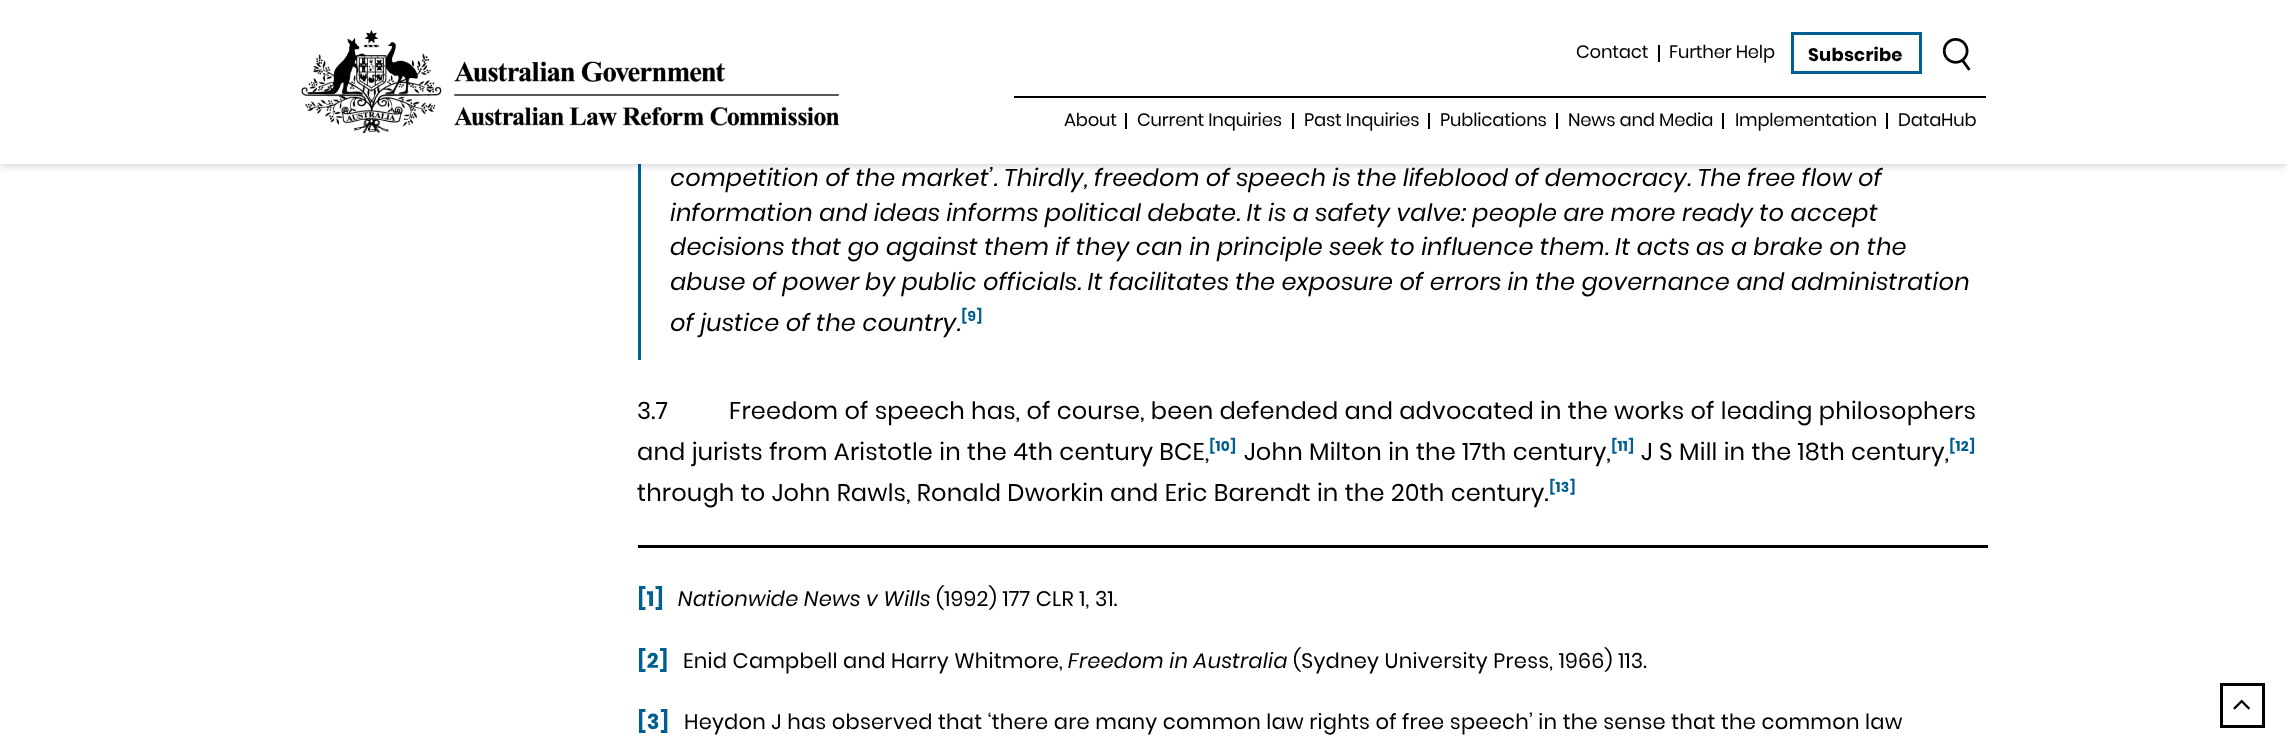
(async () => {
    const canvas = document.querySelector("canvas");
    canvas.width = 2287;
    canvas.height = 750;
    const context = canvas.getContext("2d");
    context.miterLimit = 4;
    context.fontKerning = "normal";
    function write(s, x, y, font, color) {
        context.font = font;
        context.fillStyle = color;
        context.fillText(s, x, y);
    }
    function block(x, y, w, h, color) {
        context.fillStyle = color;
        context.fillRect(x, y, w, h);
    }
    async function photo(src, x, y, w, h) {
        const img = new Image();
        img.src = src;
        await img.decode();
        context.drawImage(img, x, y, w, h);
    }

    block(0, 0, 2287, 750, "rgb(255, 255, 255)");
    block(638, 164, 3, 196, "rgb(0, 95, 146)");
    context.fillStyle = "rgba(0, 0, 0, 0.2)";
    context.filter = "blur(4px)";
    context.beginPath();
    context.rect(0, 2, 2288, 163);
    context.fill();
    context.filter = "none";
    block(0, 0, 2287, 164, "rgb(255, 255, 255)");
    await photo("media/1.png", 301, 30, 538, 104);
    block(1014, 96, 972, 2, "rgb(0, 0, 0)");
    context.letterSpacing = "-0.2px";
    write("Contact", 1576, 58, "18px Poppins", "rgb(0, 0, 0)");
    block(1658, 45, 2, 17, "rgb(0, 0, 0)");
    write("Further Help", 1669, 58, "18px Poppins", "rgb(0, 0, 0)");
    context.strokeStyle = "rgb(0, 95, 146)";
    context.lineWidth = 3;
    context.strokeRect(1792.5, 33.5, 128, 39);
    context.letterSpacing = "0.24px";
    write("Subscribe", 1808, 61, "bold 18px Poppins", "rgb(0, 0, 0)");
    await photo("media/2.png", 1942, 38, 29, 33);
    context.letterSpacing = "-0.2px";
    write("About", 1064, 126, "18px Poppins", "rgb(0, 0, 0)");
    block(1125, 113, 2, 16, "rgb(0, 0, 0)");
    write("Current Inquiries", 1137, 126, "18px Poppins", "rgb(0, 0, 0)");
    block(1292, 113, 2, 16, "rgb(0, 0, 0)");
    write("Past Inquiries", 1304, 126, "18px Poppins", "rgb(0, 0, 0)");
    block(1428, 113, 2, 16, "rgb(0, 0, 0)");
    write("Publications", 1440, 126, "18px Poppins", "rgb(0, 0, 0)");
    block(1556, 113, 2, 16, "rgb(0, 0, 0)");
    write("News and Media", 1568, 126, "18px Poppins", "rgb(0, 0, 0)");
    block(1722, 113, 2, 16, "rgb(0, 0, 0)");
    write("Implementation", 1735, 126, "18px Poppins", "rgb(0, 0, 0)");
    block(1886, 113, 2, 16, "rgb(0, 0, 0)");
    write("DataHub", 1898, 126, "18px Poppins", "rgb(0, 0, 0)");
    context.letterSpacing = "0.24px";
    write("competition of the market’. Thirdly, freedom of speech is the lifeblood of democracy. The free flow of", 670, 186, "italic 24px Poppins", "rgb(0, 0, 0)");
    write("information and ideas informs political debate. It is a safety valve: people are more ready to accept", 670, 221, "italic 24px Poppins", "rgb(0, 0, 0)");
    write("decisions that go against them if they can in principle seek to influence them. It acts as a brake on the", 670, 255, "italic 24px Poppins", "rgb(0, 0, 0)");
    write("abuse of power by public officials. It facilitates the exposure of errors in the governance and administration", 670, 290, "italic 24px Poppins", "rgb(0, 0, 0)");
    write("of justice of the country.", 670, 331, "italic 24px Poppins", "rgb(0, 0, 0)");
    write("[9]", 961, 321, "bold 14px Poppins", "rgb(0, 95, 146)");
    write("3.7", 637, 419, "24px Poppins", "rgb(0, 0, 0)");
    write("Freedom of speech has, of course, been defended and advocated in the works of leading philosophers", 729, 419, "24px Poppins", "rgb(0, 0, 0)");
    write("and jurists from Aristotle in the 4th century BCE,", 637, 460, "24px Poppins", "rgb(0, 0, 0)");
    write("[10]", 1209, 451, "bold 14px Poppins", "rgb(0, 95, 146)");
    write("John Milton in the 17th century,", 1244, 460, "24px Poppins", "rgb(0, 0, 0)");
    write("[11]", 1611, 451, "bold 14px Poppins", "rgb(0, 95, 146)");
    write("J S Mill in the 18th century,", 1641, 460, "24px Poppins", "rgb(0, 0, 0)");
    write("[12]", 1949, 451, "bold 14px Poppins", "rgb(0, 95, 146)");
    write("through to John Rawls, Ronald Dworkin and Eric Barendt in the 20th century.", 637, 501, "24px Poppins", "rgb(0, 0, 0)");
    write("[13]", 1549, 492, "bold 14px Poppins", "rgb(0, 95, 146)");
    block(638, 545, 1350, 3, "rgb(0, 0, 0)");
    write("[1]", 637, 606, "bold 21px Poppins", "rgb(0, 95, 146)");
    write("Nationwide News v Wills", 678, 606, "italic 21px Poppins", "rgb(0, 0, 0)");
    write("(1992) 177 CLR 1, 31.", 936, 606, "21px Poppins", "rgb(0, 0, 0)");
    write("[2]", 637, 668, "bold 21px Poppins", "rgb(0, 95, 146)");
    write("Enid Campbell and Harry Whitmore,", 683, 668, "21px Poppins", "rgb(0, 0, 0)");
    write("Freedom in Australia", 1068, 668, "italic 21px Poppins", "rgb(0, 0, 0)");
    write("(Sydney University Press, 1966) 113.", 1293, 668, "21px Poppins", "rgb(0, 0, 0)");
    write("[3]", 637, 729, "bold 21px Poppins", "rgb(0, 95, 146)");
    write("Heydon J has observed that ‘there are many common law rights of free speech’ in the sense that the common law", 684, 729, "21px Poppins", "rgb(0, 0, 0)");
    context.strokeStyle = "rgb(0, 0, 0)";
    context.strokeRect(2221.5, 684.5, 42, 42);
    await photo("media/3.png", 2233, 699, 17, 11);
})();
